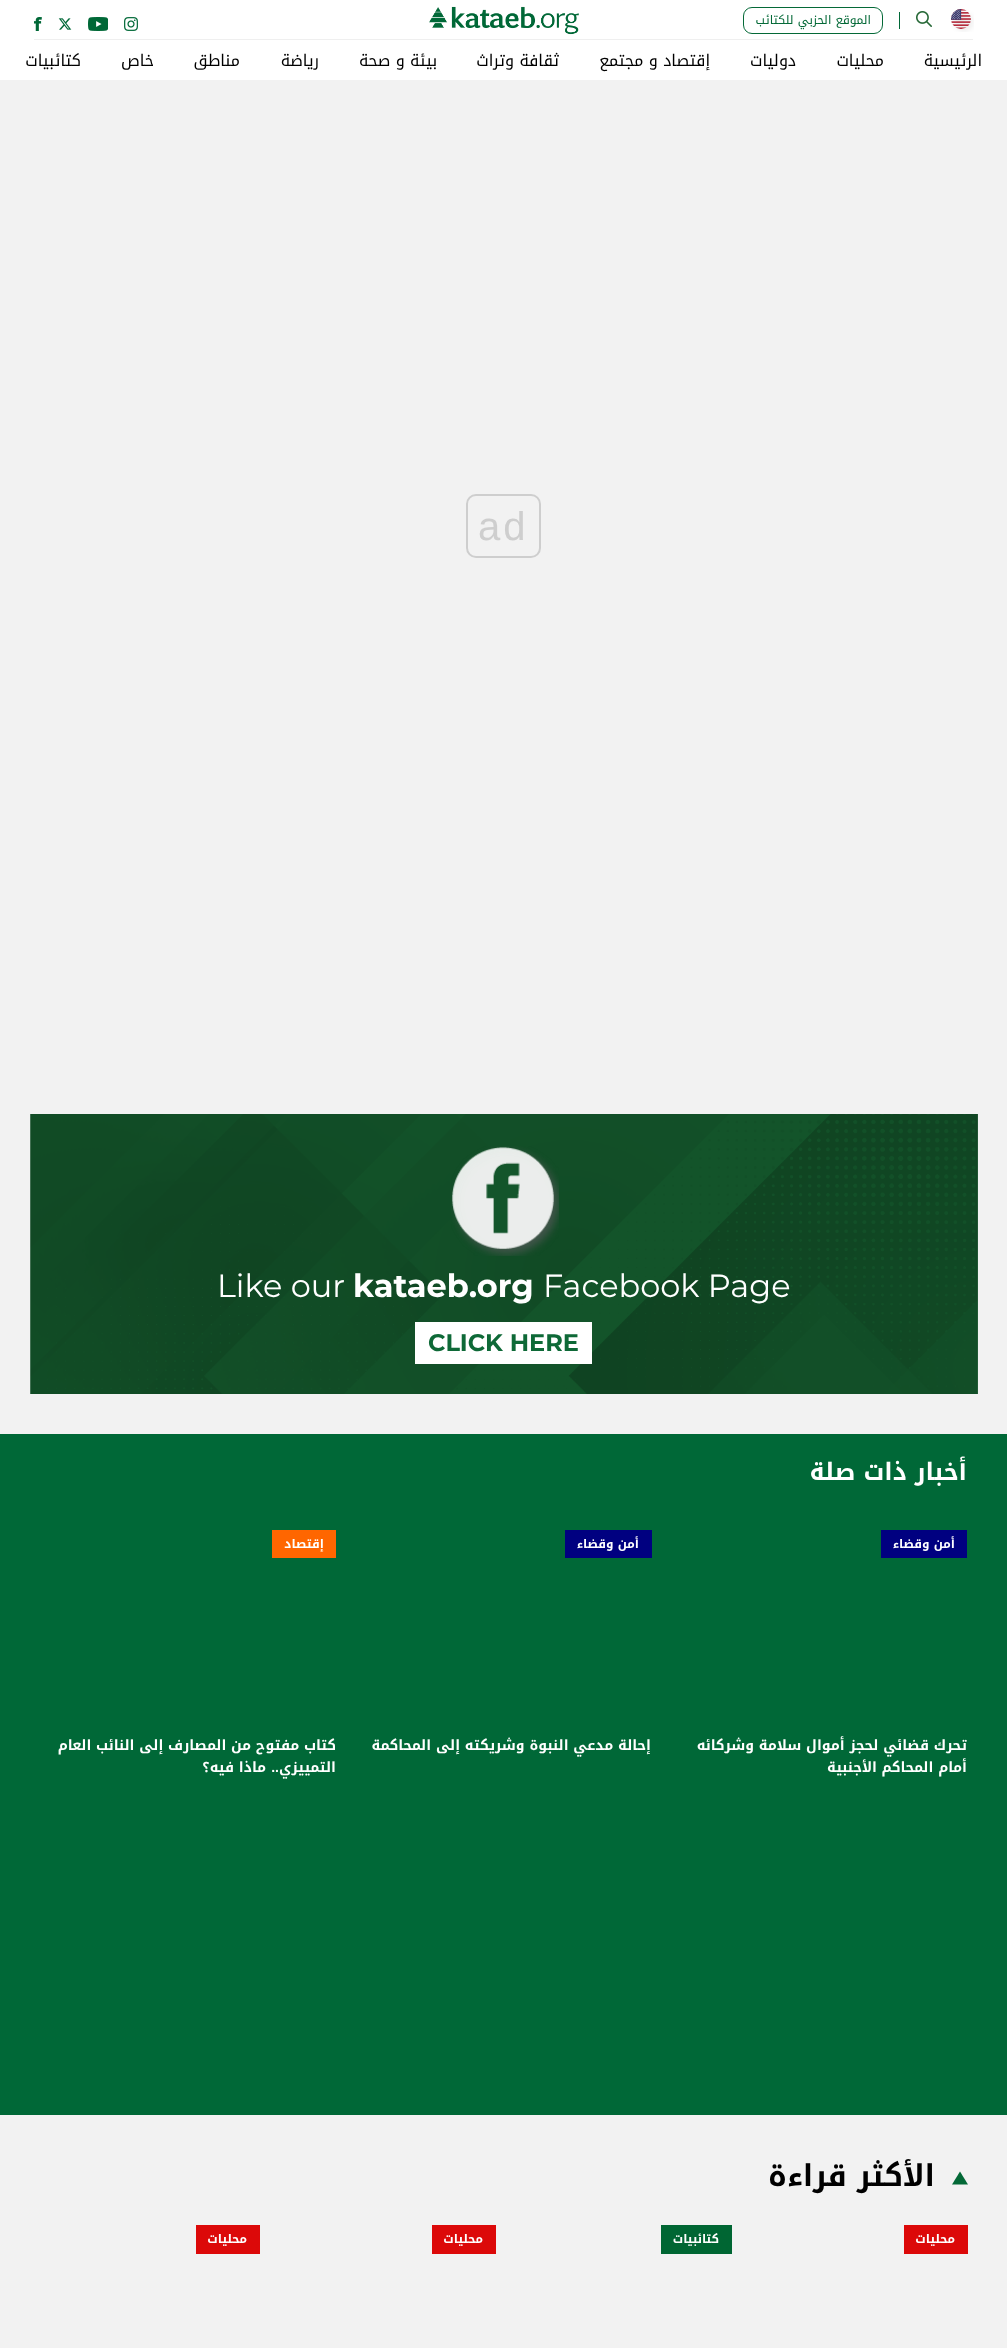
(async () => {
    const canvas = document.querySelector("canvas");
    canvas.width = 1007;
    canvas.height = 2348;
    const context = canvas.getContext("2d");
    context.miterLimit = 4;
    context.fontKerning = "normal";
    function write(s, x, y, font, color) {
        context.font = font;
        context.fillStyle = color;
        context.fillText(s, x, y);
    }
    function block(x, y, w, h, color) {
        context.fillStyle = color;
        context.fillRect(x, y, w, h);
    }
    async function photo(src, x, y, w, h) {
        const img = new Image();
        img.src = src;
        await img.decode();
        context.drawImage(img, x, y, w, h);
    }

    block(0, 0, 1007, 2348, "rgb(242, 242, 242)");
    block(0, 0, 1007, 80, "rgb(255, 255, 255)");
    await photo("media/1.png", 951, 9, 23, 23);
    await photo("media/2.png", 916, 11, 16, 16);
    block(899, 12, 1, 17, "rgb(0, 104, 55)");
    context.beginPath();
    context.roundRect(743.5, 7.5, 139, 26, 8.5);
    context.strokeStyle = "rgb(4, 105, 55)";
    context.stroke();
    context.direction = "rtl";
    write("الموقع الحزبي للكتائب", 871, 24, "12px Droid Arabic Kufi", "rgb(4, 105, 55)");
    await photo("media/3.png", 429, 6, 150, 29);
    await photo("media/4.png", 124, 17, 14, 14);
    await photo("media/5.png", 88, 17, 20, 14);
    await photo("media/6.png", 58, 18, 14, 12);
    await photo("media/7.png", 34, 17, 8, 14);
    block(34, 39, 939, 1, "rgb(239, 239, 239)");
    write("الرئيسية", 982, 66, "16px Droid Arabic Kufi", "rgb(0, 0, 0)");
    write("محليات", 884, 66, "16px Droid Arabic Kufi", "rgb(0, 0, 0)");
    write("دوليات", 796, 66, "16px Droid Arabic Kufi", "rgb(0, 0, 0)");
    write("إقتصاد و مجتمع", 710, 66, "16px Droid Arabic Kufi", "rgb(0, 0, 0)");
    write("ثقافة وتراث", 559, 66, "16px Droid Arabic Kufi", "rgb(0, 0, 0)");
    write("بيئة و صحة", 437, 66, "16px Droid Arabic Kufi", "rgb(0, 0, 0)");
    write("رياضة", 319, 66, "16px Droid Arabic Kufi", "rgb(0, 0, 0)");
    write("مناطق", 240, 66, "16px Droid Arabic Kufi", "rgb(0, 0, 0)");
    write("خاص", 154, 66, "16px Droid Arabic Kufi", "rgb(0, 0, 0)");
    write("كتائبيات", 81, 66, "16px Droid Arabic Kufi", "rgb(0, 0, 0)");
    context.beginPath();
    context.roundRect(467, 495, 73, 62, 9);
    context.strokeStyle = "rgb(206, 206, 206)";
    context.lineWidth = 2;
    context.stroke();
    context.letterSpacing = "3px";
    context.direction = "ltr";
    write("ad", 478, 540, "40px Liberation Sans", "rgb(206, 206, 206)");
    await photo("media/8.png", 30, 1114, 948, 280);
    await photo("media/9.png", 451, 1146, 108, 110);
    context.letterSpacing = "0px";
    write("Facebook Page", 543, 1297, "32px Montserrat", "rgb(255, 255, 255)");
    write("kataeb.org", 353, 1297, "bold 32px Montserrat", "rgb(255, 255, 255)");
    write("Like our", 217, 1297, "32px Montserrat", "rgb(255, 255, 255)");
    block(415, 1322, 177, 42, "rgb(255, 255, 255)");
    write("CLICK HERE", 428, 1351, "bold 24px Montserrat", "rgb(14, 105, 55)");
    block(0, 1434, 1007, 681, "rgb(0, 104, 55)");
    context.direction = "rtl";
    write("أخبار ذات صلة", 967, 1480, "bold 24px Droid Arabic Kufi", "rgb(255, 255, 255)");
    block(881, 1530, 86, 28, "rgb(0, 0, 128)");
    write("أمن وقضاء", 955, 1548, "bold 12px Droid Arabic Kufi", "rgb(255, 255, 255)");
    write("تحرك قضائي لحجز أموال سلامة وشركائه", 967, 1750, "bold 14px Droid Arabic Kufi", "rgb(255, 255, 255)");
    write("أمام المحاكم الأجنبية", 967, 1772, "bold 14px Droid Arabic Kufi", "rgb(255, 255, 255)");
    block(565, 1530, 87, 28, "rgb(0, 0, 128)");
    write("أمن وقضاء", 639, 1548, "bold 12px Droid Arabic Kufi", "rgb(255, 255, 255)");
    write("إحالة مدعي النبوة وشريكته إلى المحاكمة", 651, 1750, "bold 14px Droid Arabic Kufi", "rgb(255, 255, 255)");
    block(272, 1530, 64, 28, "rgb(255, 102, 0)");
    write("إقتصاد", 324, 1548, "bold 12px Droid Arabic Kufi", "rgb(255, 255, 255)");
    write("كتاب مفتوح من المصارف إلى النائب العام", 336, 1750, "bold 14px Droid Arabic Kufi", "rgb(255, 255, 255)");
    write("التمييزي", 336, 1772, "bold 14px Droid Arabic Kufi", "rgb(255, 255, 255)");
    write("..", 279, 1772, "bold 14px Liberation Sans", "rgb(255, 255, 255)");
    write("ماذا فيه؟", 266, 1772, "bold 14px Droid Arabic Kufi", "rgb(255, 255, 255)");
    context.fillStyle = "rgb(4, 105, 55)";
    context.beginPath();
    context.moveTo(968, 2184.5);
    context.lineTo(952, 2184.5);
    context.lineTo(960, 2171.5);
    context.closePath();
    context.fill();
    write("الأكثر قراءة", 935, 2186, "bold 30px Droid Arabic Kufi", "rgb(0, 0, 0)");
    block(904, 2225, 64, 29, "rgb(220, 9, 9)");
    write("محليات", 955, 2243, "bold 12px Droid Arabic Kufi", "rgb(255, 255, 255)");
    block(661, 2225, 71, 29, "rgb(0, 102, 51)");
    write("كتائبيات", 719, 2243, "bold 12px Droid Arabic Kufi", "rgb(255, 255, 255)");
    block(432, 2225, 64, 29, "rgb(220, 9, 9)");
    write("محليات", 483, 2243, "bold 12px Droid Arabic Kufi", "rgb(255, 255, 255)");
    block(196, 2225, 64, 29, "rgb(220, 9, 9)");
    write("محليات", 247, 2243, "bold 12px Droid Arabic Kufi", "rgb(255, 255, 255)");
})();
